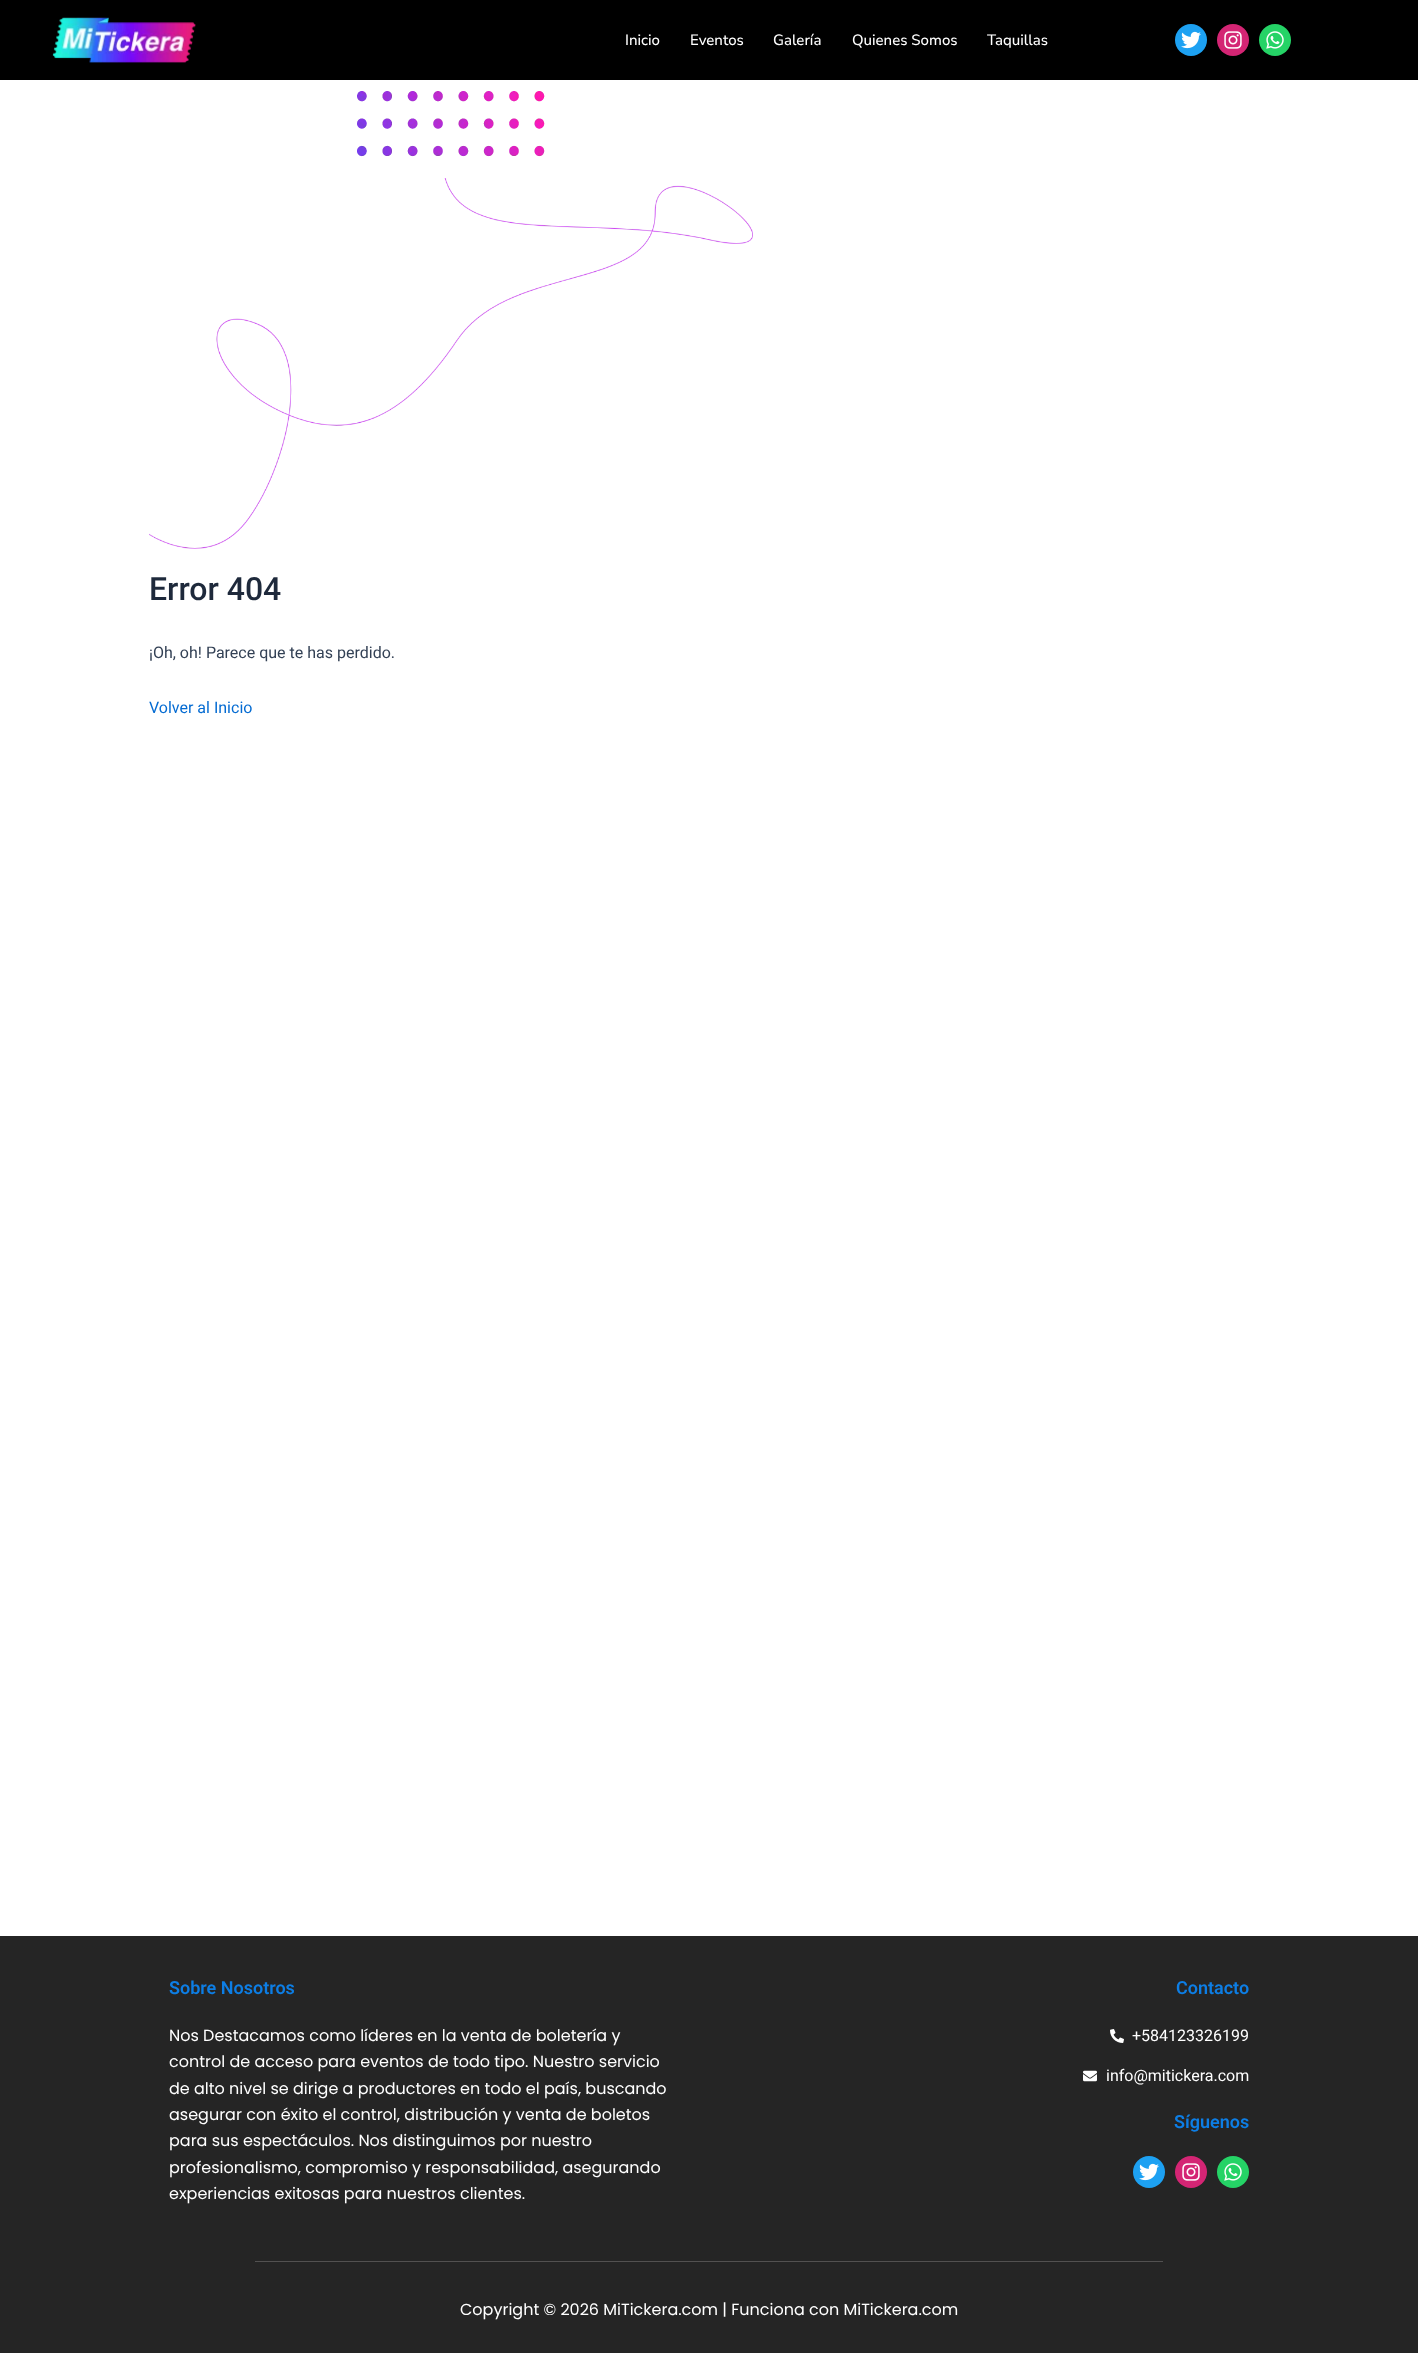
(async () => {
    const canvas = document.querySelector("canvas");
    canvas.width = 1418;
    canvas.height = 2353;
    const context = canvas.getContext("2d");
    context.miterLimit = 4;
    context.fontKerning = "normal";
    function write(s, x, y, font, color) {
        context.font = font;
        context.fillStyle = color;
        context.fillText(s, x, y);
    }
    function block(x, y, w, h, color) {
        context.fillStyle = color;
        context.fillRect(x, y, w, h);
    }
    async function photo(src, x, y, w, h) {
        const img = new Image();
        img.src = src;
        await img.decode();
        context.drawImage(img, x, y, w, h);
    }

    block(0, 0, 1418, 2353, "rgb(255, 255, 255)");
    block(0, 0, 1418, 80, "rgb(0, 0, 0)");
    await photo("media/1.png", 52, 17, 144, 46);
    write("Inicio", 625, 45, "500 15px Nunito Sans", "rgb(255, 255, 255)");
    write("Eventos", 690, 45, "500 15px Nunito Sans", "rgb(255, 255, 255)");
    write("Galería", 773, 45, "500 15px Nunito Sans", "rgb(255, 255, 255)");
    write("Quienes Somos", 852, 45, "500 15px Nunito Sans", "rgb(255, 255, 255)");
    write("Taquillas", 987, 45, "500 15px Nunito Sans", "rgb(255, 255, 255)");
    context.fillStyle = "rgb(29, 161, 242)";
    context.beginPath();
    context.arc(1191, 40, 16, 0, Math.PI * 2);
    context.fill();
    await photo("media/2.png", 1181, 31, 20, 18);
    context.fillStyle = "rgb(212, 37, 116)";
    context.beginPath();
    context.arc(1233, 40, 16, 0, Math.PI * 2);
    context.fill();
    await photo("media/3.png", 1224, 31, 18, 18);
    context.fillStyle = "rgb(37, 211, 102)";
    context.beginPath();
    context.arc(1275, 40, 16, 0, Math.PI * 2);
    context.fill();
    await photo("media/4.png", 1266, 31, 18, 18);
    await photo("media/5.png", 357, 91, 188, 66);
    await photo("media/6.png", 149, 178, 604, 371);
    write("Error 404", 149, 600, "500 32px Roboto", "rgb(30, 41, 59)");
    write("¡Oh, oh! Parece que te has perdido.", 149, 658, "16px Roboto", "rgb(51, 65, 85)");
    write("Volver al Inicio", 149, 713, "16px Roboto", "rgb(4, 107, 210)");
    block(0, 1936, 1418, 417, "rgb(37, 37, 37)");
    write("Sobre Nosotros", 169, 1994, "600 18px Roboto", "rgb(13, 126, 229)");
    write("Nos Destacamos como líderes en la venta de boletería y", 169, 2041, "16px Poppins", "rgb(255, 255, 255)");
    write("control de acceso para eventos de todo tipo. Nuestro servicio", 169, 2067, "16px Poppins", "rgb(255, 255, 255)");
    write("de alto nivel se dirige a productores en todo el país, buscando", 169, 2094, "16px Poppins", "rgb(255, 255, 255)");
    write("asegurar con éxito el control, distribución y venta de boletos", 169, 2120, "16px Poppins", "rgb(255, 255, 255)");
    write("para sus espectáculos. Nos distinguimos por nuestro", 169, 2146, "16px Poppins", "rgb(255, 255, 255)");
    write("profesionalismo, compromiso y responsabilidad, asegurando", 169, 2173, "16px Poppins", "rgb(255, 255, 255)");
    write("experiencias exitosas para nuestros clientes.", 169, 2199, "16px Poppins", "rgb(255, 255, 255)");
    write("Contacto", 1176, 1994, "600 18px Roboto", "rgb(13, 126, 229)");
    await photo("media/7.png", 1110, 2029, 14, 14);
    write("+584123326199", 1132, 2041, "16px Roboto", "rgb(255, 255, 255)");
    await photo("media/8.png", 1083, 2070, 14, 12);
    write("info@mitickera.com", 1106, 2081, "16px Roboto", "rgb(255, 255, 255)");
    write("Síguenos", 1174, 2128, "600 18px Roboto", "rgb(13, 126, 229)");
    context.fillStyle = "rgb(29, 161, 242)";
    context.beginPath();
    context.arc(1149, 2172, 16, 0, Math.PI * 2);
    context.fill();
    await photo("media/2.png", 1139, 2163, 20, 18);
    context.fillStyle = "rgb(212, 37, 116)";
    context.beginPath();
    context.arc(1191, 2172, 16, 0, Math.PI * 2);
    context.fill();
    await photo("media/3.png", 1182, 2163, 18, 18);
    context.fillStyle = "rgb(37, 211, 102)";
    context.beginPath();
    context.arc(1233, 2172, 16, 0, Math.PI * 2);
    context.fill();
    await photo("media/4.png", 1224, 2163, 18, 18);
    block(255, 2261, 908, 1, "rgb(82, 81, 81)");
    write("Copyright © 2026 MiTickera.com | Funciona con MiTickera.com", 460, 2315, "16px Poppins", "rgb(255, 255, 255)");
})();
